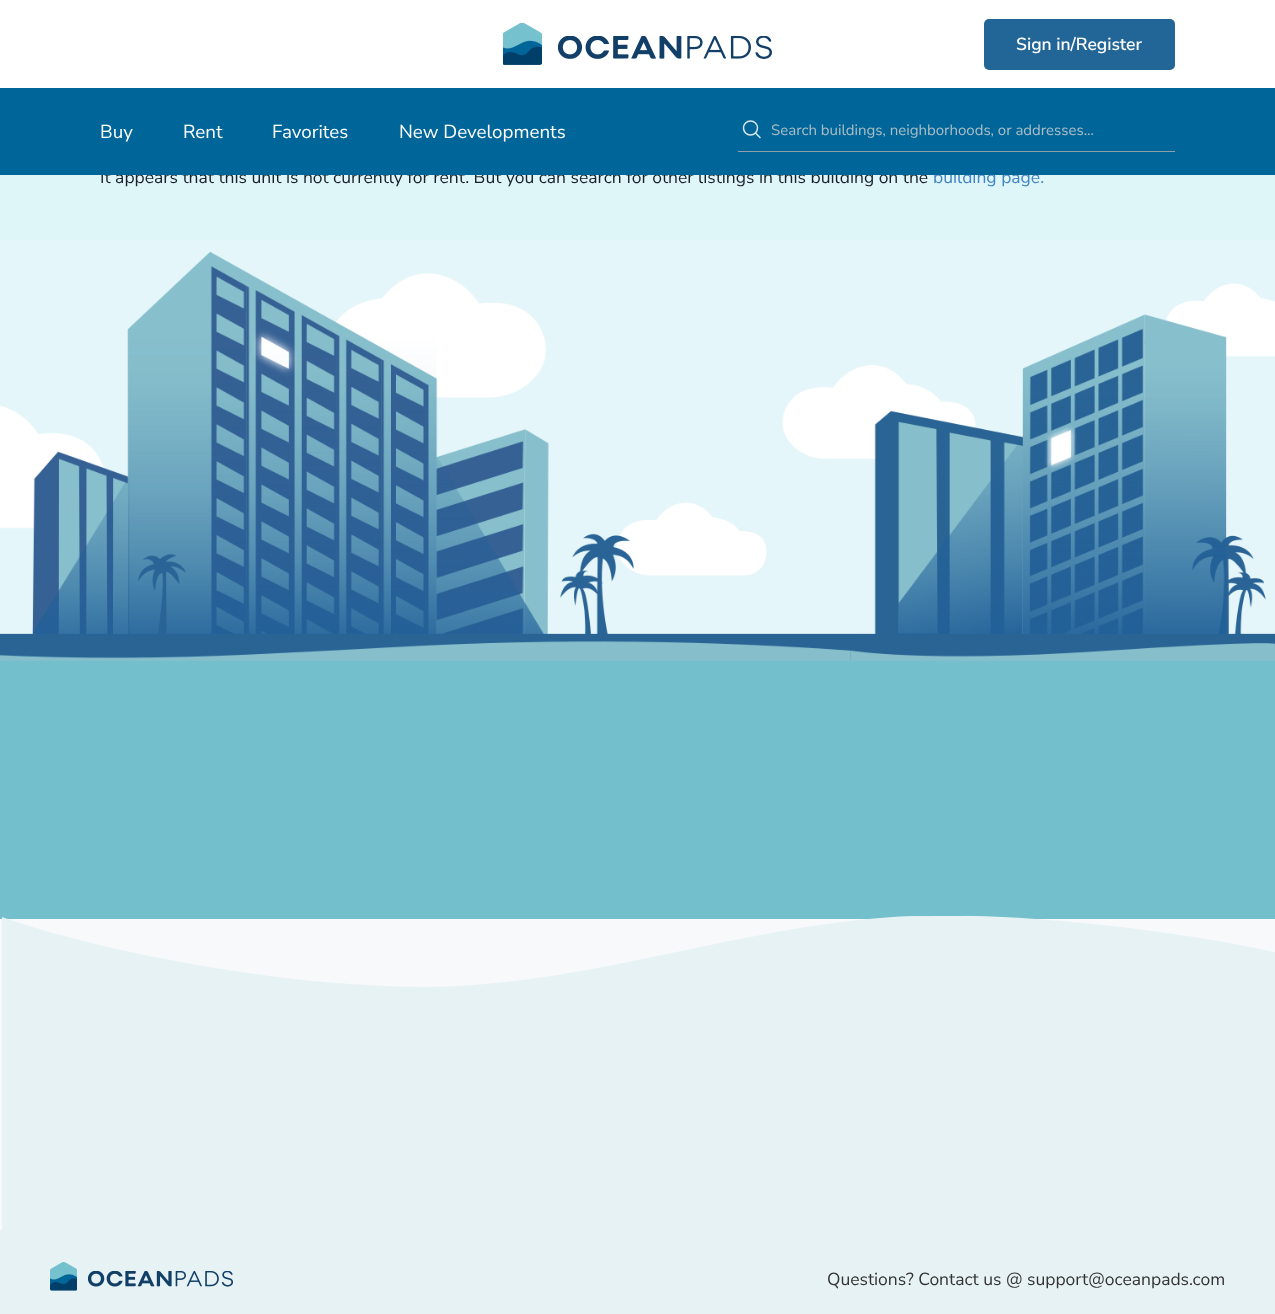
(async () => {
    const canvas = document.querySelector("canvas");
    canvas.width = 1275;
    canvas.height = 1314;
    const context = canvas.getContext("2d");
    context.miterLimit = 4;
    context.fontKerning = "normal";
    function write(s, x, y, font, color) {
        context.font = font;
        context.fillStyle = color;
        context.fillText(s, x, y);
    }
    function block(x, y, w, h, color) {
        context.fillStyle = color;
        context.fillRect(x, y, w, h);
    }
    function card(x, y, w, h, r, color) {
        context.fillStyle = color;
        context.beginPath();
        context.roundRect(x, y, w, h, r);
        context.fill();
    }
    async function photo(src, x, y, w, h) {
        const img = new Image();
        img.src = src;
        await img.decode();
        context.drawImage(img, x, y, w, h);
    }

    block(0, 0, 1275, 1314, "rgb(248, 249, 250)");
    block(0, 0, 1275, 88, "rgb(255, 255, 255)");
    await photo("media/1.png", 503, 23, 269, 42);
    card(984, 19, 191, 51, 5, "rgb(34, 101, 151)");
    write("Sign in/Register", 1016, 50, "600 17.5px Nunito Sans", "rgb(255, 255, 255)");
    block(0, 175, 1275, 65, "rgb(223, 246, 249)");
    write("It appears that this unit is not currently for rent. But you can search for other listings in this building on the", 100, 183, "17.5px Nunito Sans", "rgb(26, 31, 44)");
    write("building page.", 933, 183, "17.5px Nunito Sans", "rgb(65, 131, 196)");
    block(0, 88, 1275, 87, "rgb(0, 102, 154)");
    write("Buy", 100, 138, "18.75px Nunito Sans", "rgb(255, 255, 255)");
    write("Rent", 183, 138, "18.75px Nunito Sans", "rgb(255, 255, 255)");
    write("Favorites", 272, 138, "18.75px Nunito Sans", "rgb(255, 255, 255)");
    write("New Developments", 399, 138, "18.75px Nunito Sans", "rgb(255, 255, 255)");
    context.beginPath();
    context.arc(750.5, 128, 7, 0, Math.PI * 2);
    context.strokeStyle = "rgb(217, 232, 240)";
    context.lineWidth = 1.5;
    context.stroke();
    context.beginPath();
    context.moveTo(755.5, 133);
    context.lineTo(760, 137.5);
    context.lineCap = "round";
    context.lineJoin = "round";
    context.stroke();
    block(738, 151, 437, 1, "rgb(145, 160, 168)");
    write("Search buildings, neighborhoods, or addresses...", 771, 135, "15px Nunito Sans", "rgb(173, 189, 197)");
    block(0, 660, 1275, 259, "rgb(116, 191, 204)");
    await photo("media/2.png", 0, 240, 1275, 421);
    await photo("media/3.png", 2, 915, 1273, 315);
    block(0, 1230, 1275, 84, "rgb(230, 242, 244)");
    await photo("media/4.png", 50, 1262, 183, 29);
    write("Questions? Contact us @ support@oceanpads.com", 827, 1285, "17.5px Nunito Sans", "rgb(51, 51, 51)");
})();
